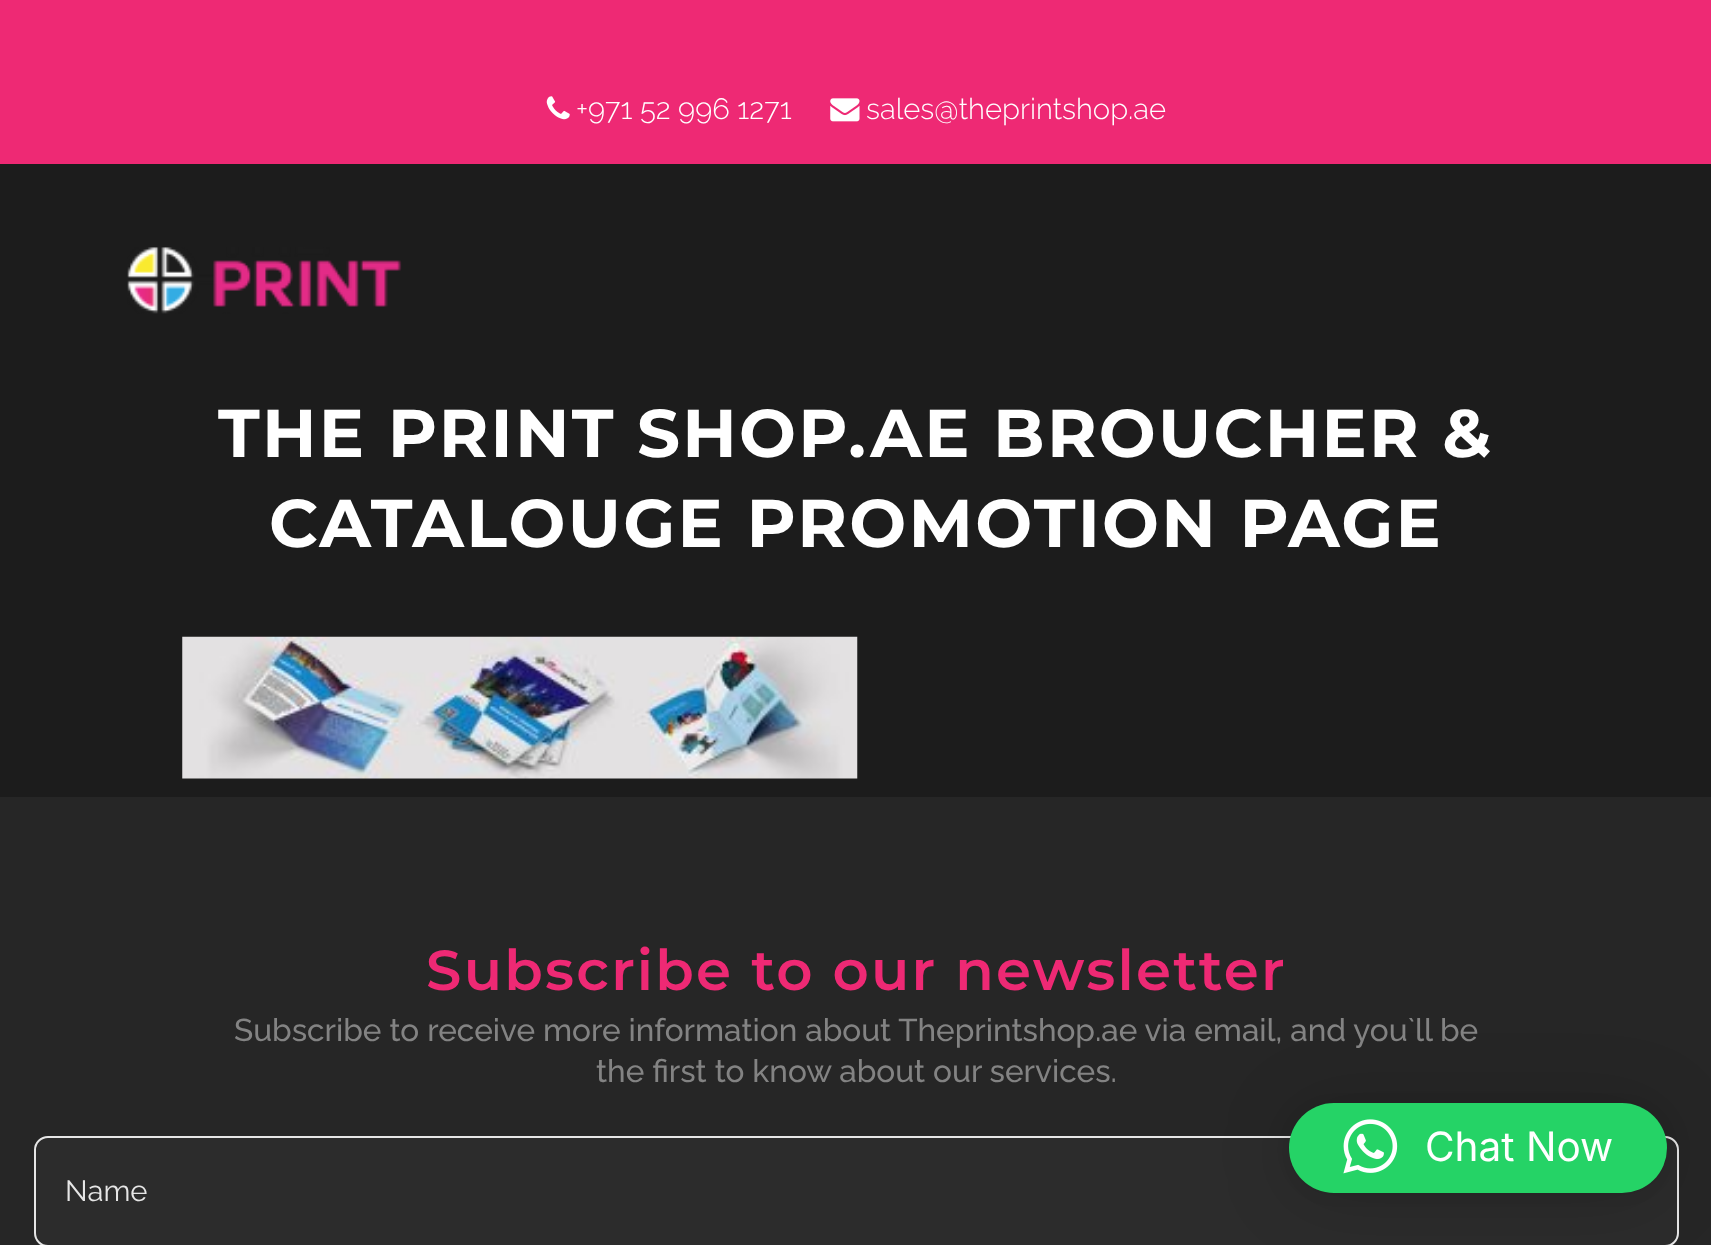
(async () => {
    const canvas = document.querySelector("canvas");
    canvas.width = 1711;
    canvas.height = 1245;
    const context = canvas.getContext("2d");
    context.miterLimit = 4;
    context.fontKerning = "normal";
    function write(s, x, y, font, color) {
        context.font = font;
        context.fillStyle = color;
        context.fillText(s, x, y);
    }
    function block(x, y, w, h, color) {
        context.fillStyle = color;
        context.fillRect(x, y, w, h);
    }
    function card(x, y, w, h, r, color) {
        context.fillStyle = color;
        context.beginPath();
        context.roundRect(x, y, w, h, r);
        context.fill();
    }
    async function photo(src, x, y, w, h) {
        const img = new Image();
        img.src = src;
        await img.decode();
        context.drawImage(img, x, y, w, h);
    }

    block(0, 0, 1711, 1245, "rgb(28, 28, 28)");
    block(0, 0, 1711, 164, "rgb(238, 41, 116)");
    await photo("media/1.png", 546, 96, 24, 24);
    write("+971 52 996 1271", 576, 119, "300 29.25px Raleway", "rgb(255, 255, 255)");
    await photo("media/2.png", 830, 98, 30, 24);
    write("sales@theprintshop.ae", 866, 119, "300 29.25px Raleway", "rgb(255, 255, 255)");
    await photo("media/3.png", 127, 247, 275, 67);
    context.letterSpacing = "2.25px";
    write("THE PRINT SHOP.AE BROUCHER &", 218, 457, "bold 67.5px Montserrat", "rgb(255, 255, 255)");
    write("CATALOUGE PROMOTION PAGE", 269, 547, "bold 67.5px Montserrat", "rgb(255, 255, 255)");
    await photo("media/4.png", 182, 636, 676, 143);
    block(0, 797, 1711, 448, "rgb(38, 38, 38)");
    write("Subscribe to our newsletter", 426, 990, "600 56.25px Montserrat", "rgb(238, 41, 116)");
    context.letterSpacing = "0px";
    write("Subscribe to receive more information about Theprintshop.ae via email, and you`ll be", 234, 1041, "500 31.5px Raleway", "rgb(131, 131, 131)");
    write("the first to know about our services.", 596, 1082, "500 31.5px Raleway", "rgb(131, 131, 131)");
    context.fillStyle = "rgb(44, 44, 44)";
    context.beginPath();
    context.roundRect(35, 1137, 1643, 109, 13);
    context.fill();
    context.strokeStyle = "rgb(230, 230, 230)";
    context.lineWidth = 2;
    context.stroke();
    write("Name", 65, 1201, "29.25px Raleway", "rgb(230, 230, 230)");
    context.fillStyle = "rgba(0, 0, 0, 0.16)";
    context.filter = "blur(36px)";
    context.beginPath();
    context.roundRect(1289, 1107, 378, 90, 45);
    context.fill();
    context.filter = "none";
    context.fillStyle = "rgba(0, 0, 0, 0.06)";
    context.filter = "blur(7px)";
    context.beginPath();
    context.roundRect(1289, 1105, 378, 90, 45);
    context.fill();
    context.filter = "none";
    card(1289, 1103, 378, 90, 45, "rgb(37, 211, 102)");
    await photo("media/5.png", 1343, 1119, 55, 55);
    write("Chat Now", 1425, 1161, "40.5px Inter", "rgb(255, 255, 255)");
})();
